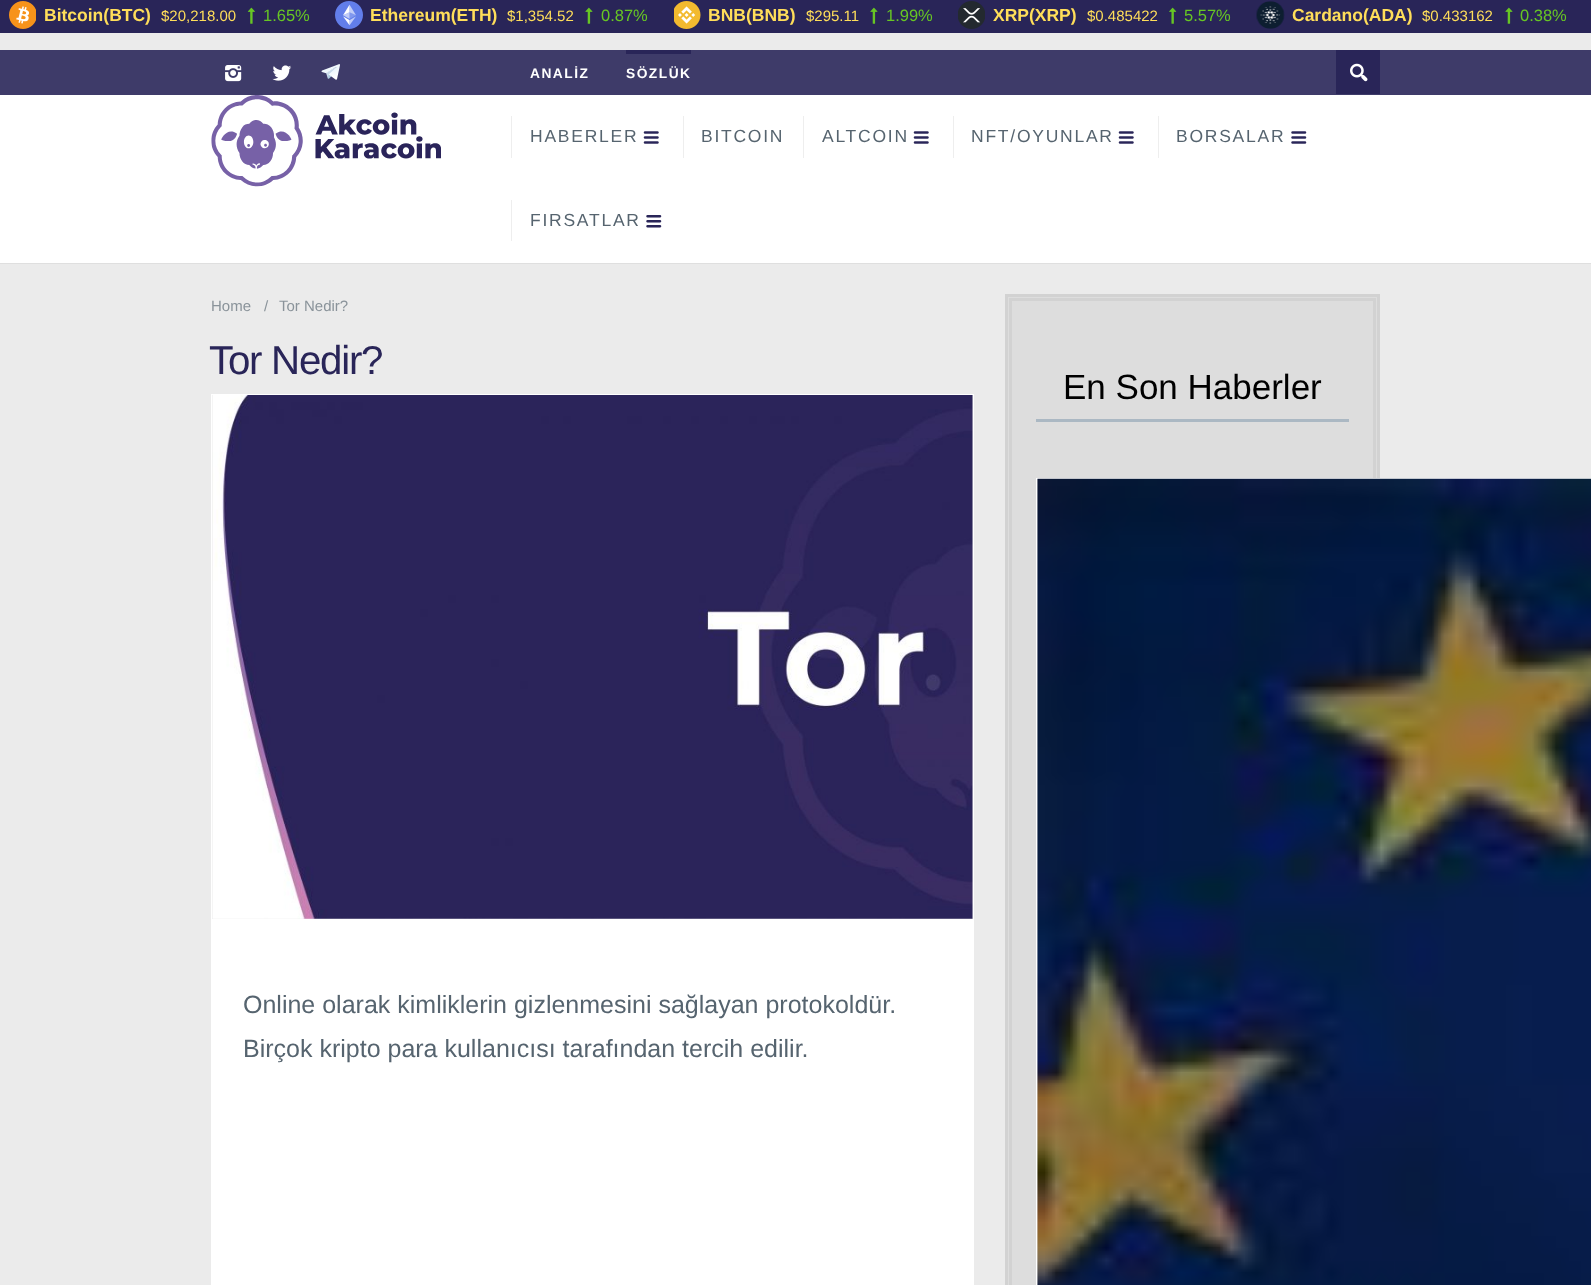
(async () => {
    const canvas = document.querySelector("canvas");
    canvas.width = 1591;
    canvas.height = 1285;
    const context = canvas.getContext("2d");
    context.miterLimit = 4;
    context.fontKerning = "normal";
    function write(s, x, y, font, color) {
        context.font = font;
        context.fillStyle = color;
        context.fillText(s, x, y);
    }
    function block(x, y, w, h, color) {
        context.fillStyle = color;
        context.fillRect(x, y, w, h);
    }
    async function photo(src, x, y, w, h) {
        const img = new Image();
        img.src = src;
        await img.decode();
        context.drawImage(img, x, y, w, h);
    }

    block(0, 0, 1591, 1285, "rgb(235, 235, 235)");
    block(0, 0, 1591, 33, "rgb(41, 37, 88)");
    await photo("media/1.png", 9, 1, 27, 28);
    write("Bitcoin(BTC)", 44, 21, "bold 17.5px Liberation Sans", "rgb(255, 222, 90)");
    write("$20,218.00", 161, 21, "15px Liberation Sans", "rgb(255, 222, 90)");
    await photo("media/2.png", 247, 7, 8, 17);
    write("1.65%", 263, 21, "16.5px Liberation Sans", "rgb(103, 198, 36)");
    await photo("media/3.png", 335, 1, 28, 28);
    write("Ethereum(ETH)", 370, 21, "bold 17.5px Liberation Sans", "rgb(255, 222, 90)");
    write("$1,354.52", 507, 21, "15px Liberation Sans", "rgb(255, 222, 90)");
    await photo("media/4.png", 585, 7, 8, 17);
    write("0.87%", 601, 21, "16.5px Liberation Sans", "rgb(103, 198, 36)");
    await photo("media/5.png", 674, 1, 27, 28);
    write("BNB(BNB)", 708, 21, "bold 17.5px Liberation Sans", "rgb(255, 222, 90)");
    write("$295.11", 806, 21, "15px Liberation Sans", "rgb(255, 222, 90)");
    await photo("media/4.png", 870, 7, 8, 17);
    write("1.99%", 886, 21, "16.5px Liberation Sans", "rgb(103, 198, 36)");
    await photo("media/6.png", 958, 1, 27, 28);
    write("XRP(XRP)", 993, 21, "bold 17.5px Liberation Sans", "rgb(255, 222, 90)");
    write("$0.485422", 1087, 21, "15px Liberation Sans", "rgb(255, 222, 90)");
    await photo("media/7.png", 1169, 7, 8, 17);
    write("5.57%", 1184, 21, "16.5px Liberation Sans", "rgb(103, 198, 36)");
    await photo("media/8.png", 1256, 1, 29, 28);
    write("Cardano(ADA)", 1292, 21, "bold 17.5px Liberation Sans", "rgb(255, 222, 90)");
    write("$0.433162", 1422, 21, "15px Liberation Sans", "rgb(255, 222, 90)");
    await photo("media/4.png", 1505, 7, 8, 17);
    write("0.38%", 1520, 21, "16.5px Liberation Sans", "rgb(103, 198, 36)");
    block(0, 50, 1591, 45, "rgb(62, 59, 105)");
    await photo("media/9.png", 225, 65, 17, 17);
    await photo("media/10.png", 272, 65, 20, 16);
    await photo("media/11.png", 321, 64, 19, 16);
    context.letterSpacing = "1.5px";
    write("ANALİZ", 530, 78, "bold 13.75px Liberation Sans", "rgb(255, 255, 255)");
    block(626, 50, 65, 4, "rgb(41, 37, 88)");
    write("SÖZLÜK", 626, 78, "bold 13.75px Liberation Sans", "rgb(255, 255, 255)");
    block(1336, 50, 44, 44, "rgb(41, 37, 88)");
    await photo("media/12.png", 1350, 63, 18, 19);
    block(0, 263, 1591, 1, "rgb(223, 223, 223)");
    block(0, 95, 1591, 168, "rgb(255, 255, 255)");
    await photo("media/13.png", 211, 95, 230, 92);
    block(511, 116, 1, 42, "rgb(238, 238, 238)");
    context.letterSpacing = "1.75px";
    write("HABERLER", 530, 142, "17.5px Liberation Sans", "rgb(86, 100, 111)");
    await photo("media/14.png", 643, 131, 16, 13);
    block(683, 116, 1, 42, "rgb(238, 238, 238)");
    write("BITCOIN", 701, 142, "17.5px Liberation Sans", "rgb(86, 100, 111)");
    block(803, 116, 1, 42, "rgb(238, 238, 238)");
    write("ALTCOIN", 822, 142, "17.5px Liberation Sans", "rgb(86, 100, 111)");
    await photo("media/14.png", 913, 131, 16, 13);
    block(953, 116, 1, 42, "rgb(238, 238, 238)");
    write("NFT/OYUNLAR", 971, 142, "17.5px Liberation Sans", "rgb(86, 100, 111)");
    await photo("media/14.png", 1118, 131, 16, 13);
    block(1158, 116, 1, 42, "rgb(238, 238, 238)");
    write("BORSALAR", 1176, 142, "17.5px Liberation Sans", "rgb(86, 100, 111)");
    await photo("media/15.png", 1291, 131, 16, 13);
    block(511, 200, 1, 41, "rgb(238, 238, 238)");
    write("FIRSATLAR", 530, 226, "17.5px Liberation Sans", "rgb(86, 100, 111)");
    await photo("media/16.png", 646, 215, 16, 13);
    context.letterSpacing = "0px";
    write("Home", 211, 311, "15px Liberation Sans", "rgb(138, 147, 154)");
    write("/", 264, 311, "15px Liberation Sans", "rgb(138, 147, 154)");
    write("Tor Nedir?", 279, 311, "15px Liberation Sans", "rgb(138, 147, 154)");
    context.letterSpacing = "-1.25px";
    write("Tor Nedir?", 209, 374, "40.25px Liberation Sans", "rgb(41, 37, 88)");
    context.strokeStyle = "rgb(255, 255, 255)";
    context.strokeRect(211.5, 394.5, 762, 525);
    await photo("media/17.png", 212, 395, 761, 524);
    block(211, 920, 763, 365, "rgb(255, 255, 255)");
    context.letterSpacing = "0px";
    write("Online olarak kimliklerin gizlenmesini sağlayan protokoldür.", 243, 1013, "25px Liberation Sans", "rgb(86, 100, 111)");
    write("Birçok kripto para kullanıcısı tarafından tercih edilir.", 243, 1057, "25px Liberation Sans", "rgb(86, 100, 111)");
    context.fillStyle = "rgb(221, 221, 221)";
    context.beginPath();
    context.rect(1006.5, 295.5, 372, 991);
    context.fill();
    context.strokeStyle = "rgb(210, 210, 210)";
    context.lineWidth = 3;
    context.stroke();
    context.strokeRect(1010.5, 299.5, 364, 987);
    write("En Son Haberler", 1063, 399, "35px Liberation Sans", "rgb(0, 0, 0)");
    block(1036, 419, 313, 3, "rgb(171, 184, 195)");
    context.strokeStyle = "rgb(255, 255, 255)";
    context.lineWidth = 1;
    context.strokeRect(1036.5, 478.5, 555, 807);
    await photo("media/18.png", 1037, 478, 554, 807);
})();
